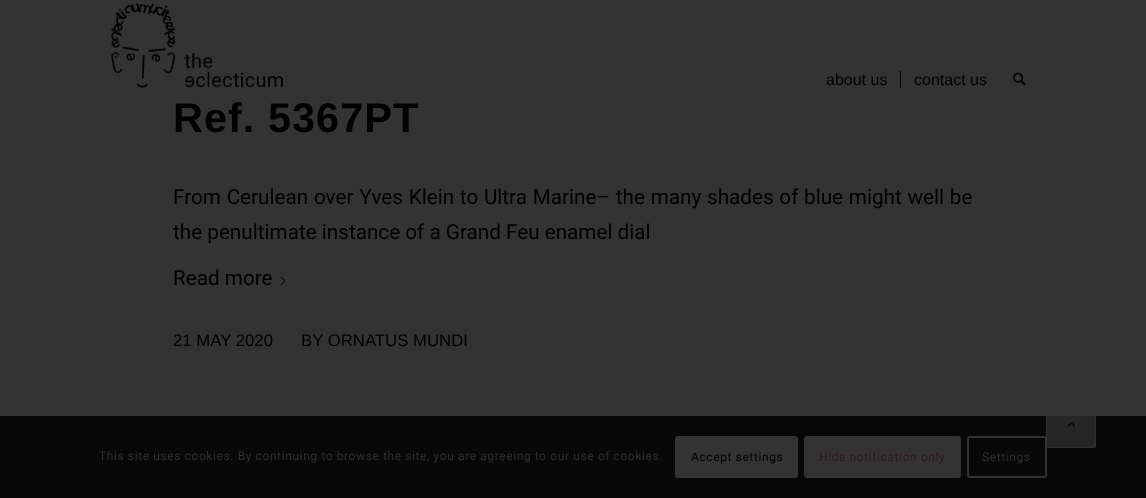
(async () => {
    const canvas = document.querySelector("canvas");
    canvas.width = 1146;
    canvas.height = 498;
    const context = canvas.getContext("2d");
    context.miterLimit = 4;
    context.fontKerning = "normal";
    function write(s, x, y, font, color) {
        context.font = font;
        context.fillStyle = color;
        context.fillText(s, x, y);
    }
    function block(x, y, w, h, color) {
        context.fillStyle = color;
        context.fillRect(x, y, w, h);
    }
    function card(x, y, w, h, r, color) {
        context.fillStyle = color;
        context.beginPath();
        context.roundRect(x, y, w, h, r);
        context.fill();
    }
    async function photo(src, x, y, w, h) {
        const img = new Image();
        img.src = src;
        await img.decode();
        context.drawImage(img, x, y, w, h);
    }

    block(0, 0, 1146, 498, "rgb(51, 51, 51)");
    block(0, 416, 1146, 82, "rgb(8, 8, 8)");
    await photo("media/1.png", 111, 3, 172, 85);
    write("about us", 826, 85, "16px Liberation Sans", "rgb(0, 0, 0)");
    write("contact us", 914, 85, "16px Liberation Sans", "rgb(0, 0, 0)");
    block(900, 71, 1, 17, "rgb(0, 0, 0)");
    await photo("media/2.png", 1013, 72, 13, 14);
    context.letterSpacing = "1px";
    write("Ref. 5367PT", 173, 132, "bold 41.5px Liberation Sans", "rgb(0, 0, 0)");
    context.letterSpacing = "0px";
    context.wordSpacing = "0.6px";
    write("From Cerulean over Yves Klein to Ultra Marine– the many shades of blue might well be", 173, 204, "20.7px Roboto", "rgb(0, 0, 0)");
    context.wordSpacing = "0px";
    write("the penultimate instance of a Grand Feu enamel dial", 173, 239, "20.7px Roboto", "rgb(0, 0, 0)");
    write("Read more", 173, 285, "20.7px Roboto", "rgb(0, 0, 0)");
    await photo("media/3.png", 280, 276, 6, 10);
    write("21 MAY 2020", 173, 346, "16.75px Liberation Sans", "rgb(0, 0, 0)");
    write("BY ORNATUS MUNDI", 301, 346, "16.75px Liberation Sans", "rgb(0, 0, 0)");
    context.beginPath();
    context.roundRect(968, 437, 78, 40, 2);
    context.strokeStyle = "rgb(51, 51, 51)";
    context.lineWidth = 2;
    context.stroke();
    card(1046, 398, 50, 50, 2, "rgba(51, 51, 51, 0.7)");
    context.beginPath();
    context.roundRect(1046.5, 398.5, 49, 49, 1.5);
    context.strokeStyle = "rgba(51, 51, 51, 0.7)";
    context.lineWidth = 1;
    context.stroke();
    await photo("media/4.png", 1067, 422, 8, 5);
    context.letterSpacing = "0.6px";
    write("This site uses cookies. By continuing to browse the site, you are agreeing to our use of cookies.", 99, 460, "12px Roboto", "rgb(47, 47, 47)");
    card(675, 436, 123, 42, 3, "rgb(51, 51, 51)");
    write("Accept settings", 691, 461, "12px Roboto", "rgb(0, 0, 0)");
    context.fillStyle = "rgb(51, 51, 51)";
    context.beginPath();
    context.roundRect(805, 437, 155, 40, 2);
    context.fill();
    context.strokeStyle = "rgb(51, 51, 51)";
    context.lineWidth = 2;
    context.stroke();
    write("Hide notification only", 819, 461, "12px Roboto", "rgb(51, 23, 36)");
    write("Settings", 982, 461, "12px Roboto", "rgb(47, 47, 47)");
})();
